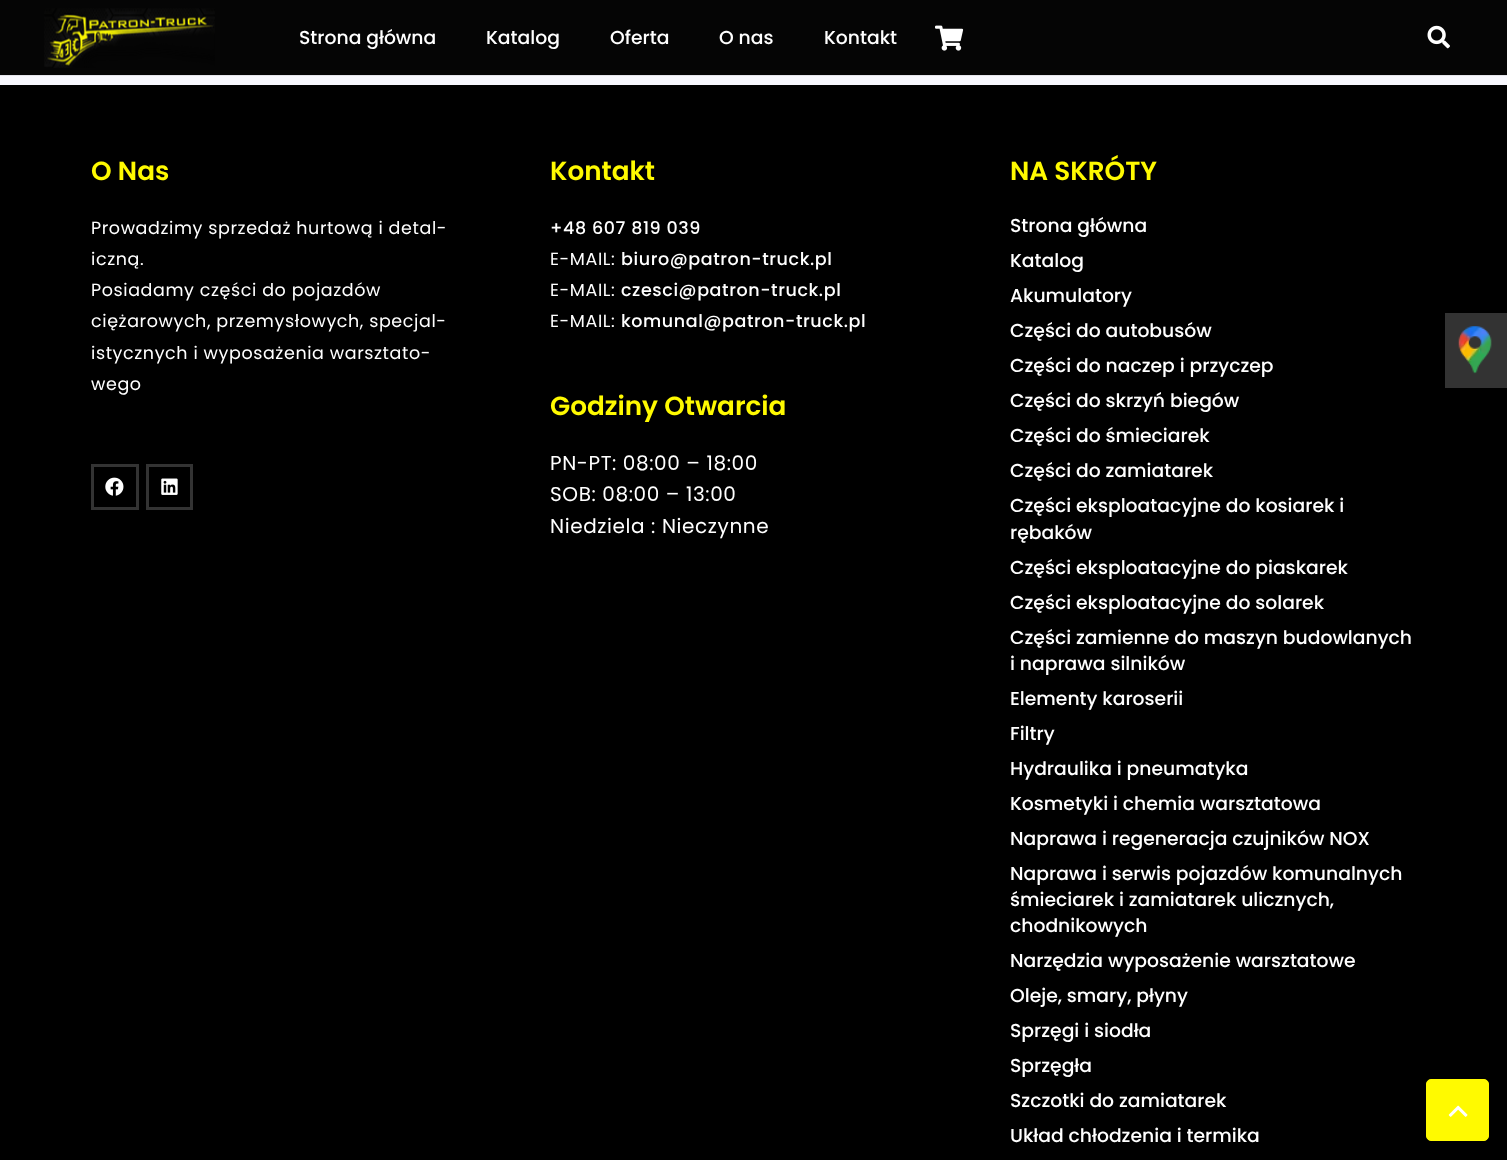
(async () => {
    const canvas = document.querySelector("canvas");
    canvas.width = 1507;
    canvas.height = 1160;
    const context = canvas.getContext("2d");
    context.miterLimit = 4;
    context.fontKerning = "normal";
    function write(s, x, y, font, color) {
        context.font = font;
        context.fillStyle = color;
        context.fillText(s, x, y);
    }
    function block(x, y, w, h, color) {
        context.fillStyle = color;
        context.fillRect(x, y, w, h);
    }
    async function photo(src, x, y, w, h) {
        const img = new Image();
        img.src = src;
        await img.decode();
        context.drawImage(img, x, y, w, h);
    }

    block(0, 0, 1507, 1160, "rgb(248, 248, 254)");
    context.fillStyle = "rgb(228, 228, 234)";
    context.beginPath();
    context.moveTo(0, 75);
    context.lineTo(0, 76);
    context.lineTo(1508, 76);
    context.lineTo(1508, 1);
    context.lineTo(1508, 75);
    context.closePath();
    context.fill();
    block(0, 0, 1507, 75, "rgb(5, 5, 5)");
    await photo("media/1.png", 44, 8, 171, 60);
    write("Strona główna", 299, 44, "500 18.75px Poppins", "rgb(255, 255, 255)");
    write("Katalog", 486, 44, "500 18.75px Poppins", "rgb(255, 255, 255)");
    write("Oferta", 610, 44, "500 18.75px Poppins", "rgb(255, 255, 255)");
    write("O nas", 719, 44, "500 18.75px Poppins", "rgb(255, 255, 255)");
    write("Kontakt", 824, 44, "500 18.75px Poppins", "rgb(255, 255, 255)");
    await photo("media/2.png", 935, 25, 29, 26);
    await photo("media/3.png", 1427, 25, 23, 24);
    block(0, 85, 1507, 1075, "rgb(0, 0, 0)");
    write("O Nas", 91, 180, "600 26.25px Poppins", "rgb(255, 250, 0)");
    context.letterSpacing = "0.6px";
    write("Prowadzimy sprzedaż hurtową i detal-", 91, 234, "17.5px Poppins", "rgb(255, 255, 255)");
    write("iczną.", 91, 265, "17.5px Poppins", "rgb(255, 255, 255)");
    write("Posiadamy części do pojazdów", 91, 296, "17.5px Poppins", "rgb(255, 255, 255)");
    write("ciężarowych, przemysłowych, specjal-", 91, 327, "17.5px Poppins", "rgb(255, 255, 255)");
    write("istycznych i wyposażenia warsztato-", 91, 359, "17.5px Poppins", "rgb(255, 255, 255)");
    write("wego", 91, 390, "17.5px Poppins", "rgb(255, 255, 255)");
    context.strokeStyle = "rgb(51, 51, 51)";
    context.lineWidth = 3;
    context.strokeRect(92.5, 465.5, 45, 43);
    await photo("media/4.png", 105, 477, 19, 19);
    context.strokeRect(147.5, 465.5, 44, 43);
    await photo("media/5.png", 161, 478, 17, 17);
    context.letterSpacing = "0px";
    write("Kontakt", 550, 180, "600 26.25px Poppins", "rgb(255, 250, 0)");
    context.letterSpacing = "0.6px";
    write("+48 607 819 039", 550, 234, "500 17.5px Poppins", "rgb(255, 255, 255)");
    write("E-MAIL:", 550, 265, "17.5px Poppins", "rgb(255, 255, 255)");
    write("biuro@patron-truck.pl", 621, 265, "500 17.5px Poppins", "rgb(255, 255, 255)");
    write("E-MAIL:", 550, 296, "17.5px Poppins", "rgb(255, 255, 255)");
    write("czesci@patron-truck.pl", 621, 296, "500 17.5px Poppins", "rgb(255, 255, 255)");
    write("E-MAIL:", 550, 327, "17.5px Poppins", "rgb(255, 255, 255)");
    write("komunal@patron-truck.pl", 621, 327, "500 17.5px Poppins", "rgb(255, 255, 255)");
    context.letterSpacing = "0px";
    write("Godziny Otwarcia", 550, 415, "600 26.25px Poppins", "rgb(255, 250, 0)");
    context.letterSpacing = "0.6px";
    write("PN-PT: 08:00 – 18:00", 550, 470, "20px Poppins", "rgb(255, 255, 255)");
    write("SOB: 08:00 – 13:00", 550, 501, "20px Poppins", "rgb(255, 255, 255)");
    write("Niedziela : Nieczynne", 550, 533, "20px Poppins", "rgb(255, 255, 255)");
    context.letterSpacing = "0px";
    write("NA SKRÓTY", 1010, 180, "600 26.25px Poppins", "rgb(255, 250, 0)");
    write("Strona główna", 1010, 232, "500 18.75px Poppins", "rgb(255, 255, 255)");
    write("Katalog", 1010, 267, "500 18.75px Poppins", "rgb(255, 255, 255)");
    write("Akumulatory", 1010, 302, "500 18.75px Poppins", "rgb(255, 255, 255)");
    write("Części do autobusów", 1010, 337, "500 18.75px Poppins", "rgb(255, 255, 255)");
    write("Części do naczep i przyczep", 1010, 372, "500 18.75px Poppins", "rgb(255, 255, 255)");
    write("Części do skrzyń biegów", 1010, 407, "500 18.75px Poppins", "rgb(255, 255, 255)");
    write("Części do śmieciarek", 1010, 442, "500 18.75px Poppins", "rgb(255, 255, 255)");
    write("Części do zamiatarek", 1010, 477, "500 18.75px Poppins", "rgb(255, 255, 255)");
    write("Części eksploatacyjne do kosiarek i", 1010, 512, "500 18.75px Poppins", "rgb(255, 255, 255)");
    write("rębaków", 1010, 539, "500 18.75px Poppins", "rgb(255, 255, 255)");
    write("Części eksploatacyjne do piaskarek", 1010, 574, "500 18.75px Poppins", "rgb(255, 255, 255)");
    write("Części eksploatacyjne do solarek", 1010, 609, "500 18.75px Poppins", "rgb(255, 255, 255)");
    write("Części zamienne do maszyn budowlanych", 1010, 644, "500 18.75px Poppins", "rgb(255, 255, 255)");
    write("i naprawa silników", 1010, 670, "500 18.75px Poppins", "rgb(255, 255, 255)");
    write("Elementy karoserii", 1010, 705, "500 18.75px Poppins", "rgb(255, 255, 255)");
    write("Filtry", 1010, 740, "500 18.75px Poppins", "rgb(255, 255, 255)");
    write("Hydraulika i pneumatyka", 1010, 775, "500 18.75px Poppins", "rgb(255, 255, 255)");
    write("Kosmetyki i chemia warsztatowa", 1010, 810, "500 18.75px Poppins", "rgb(255, 255, 255)");
    write("Naprawa i regeneracja czujników NOX", 1010, 845, "500 18.75px Poppins", "rgb(255, 255, 255)");
    write("Naprawa i serwis pojazdów komunalnych", 1010, 880, "500 18.75px Poppins", "rgb(255, 255, 255)");
    write("śmieciarek i zamiatarek ulicznych,", 1010, 906, "500 18.75px Poppins", "rgb(255, 255, 255)");
    write("chodnikowych", 1010, 932, "500 18.75px Poppins", "rgb(255, 255, 255)");
    write("Narzędzia wyposażenie warsztatowe", 1010, 967, "500 18.75px Poppins", "rgb(255, 255, 255)");
    write("Oleje, smary, płyny", 1010, 1002, "500 18.75px Poppins", "rgb(255, 255, 255)");
    write("Sprzęgi i siodła", 1010, 1037, "500 18.75px Poppins", "rgb(255, 255, 255)");
    write("Sprzęgła", 1010, 1072, "500 18.75px Poppins", "rgb(255, 255, 255)");
    write("Szczotki do zamiatarek", 1010, 1107, "500 18.75px Poppins", "rgb(255, 255, 255)");
    write("Układ chłodzenia i termika", 1010, 1142, "500 18.75px Poppins", "rgb(255, 255, 255)");
    block(1445, 313, 62, 75, "rgb(51, 51, 51)");
    await photo("media/6.png", 1458, 326, 34, 48);
    context.fillStyle = "rgb(255, 250, 0)";
    context.beginPath();
    context.roundRect(1426.5, 1079.5, 62, 61, 4.5);
    context.fill();
    context.strokeStyle = "rgb(255, 250, 0)";
    context.lineWidth = 1;
    context.stroke();
    await photo("media/7.png", 1448, 1105, 20, 12);
})();
